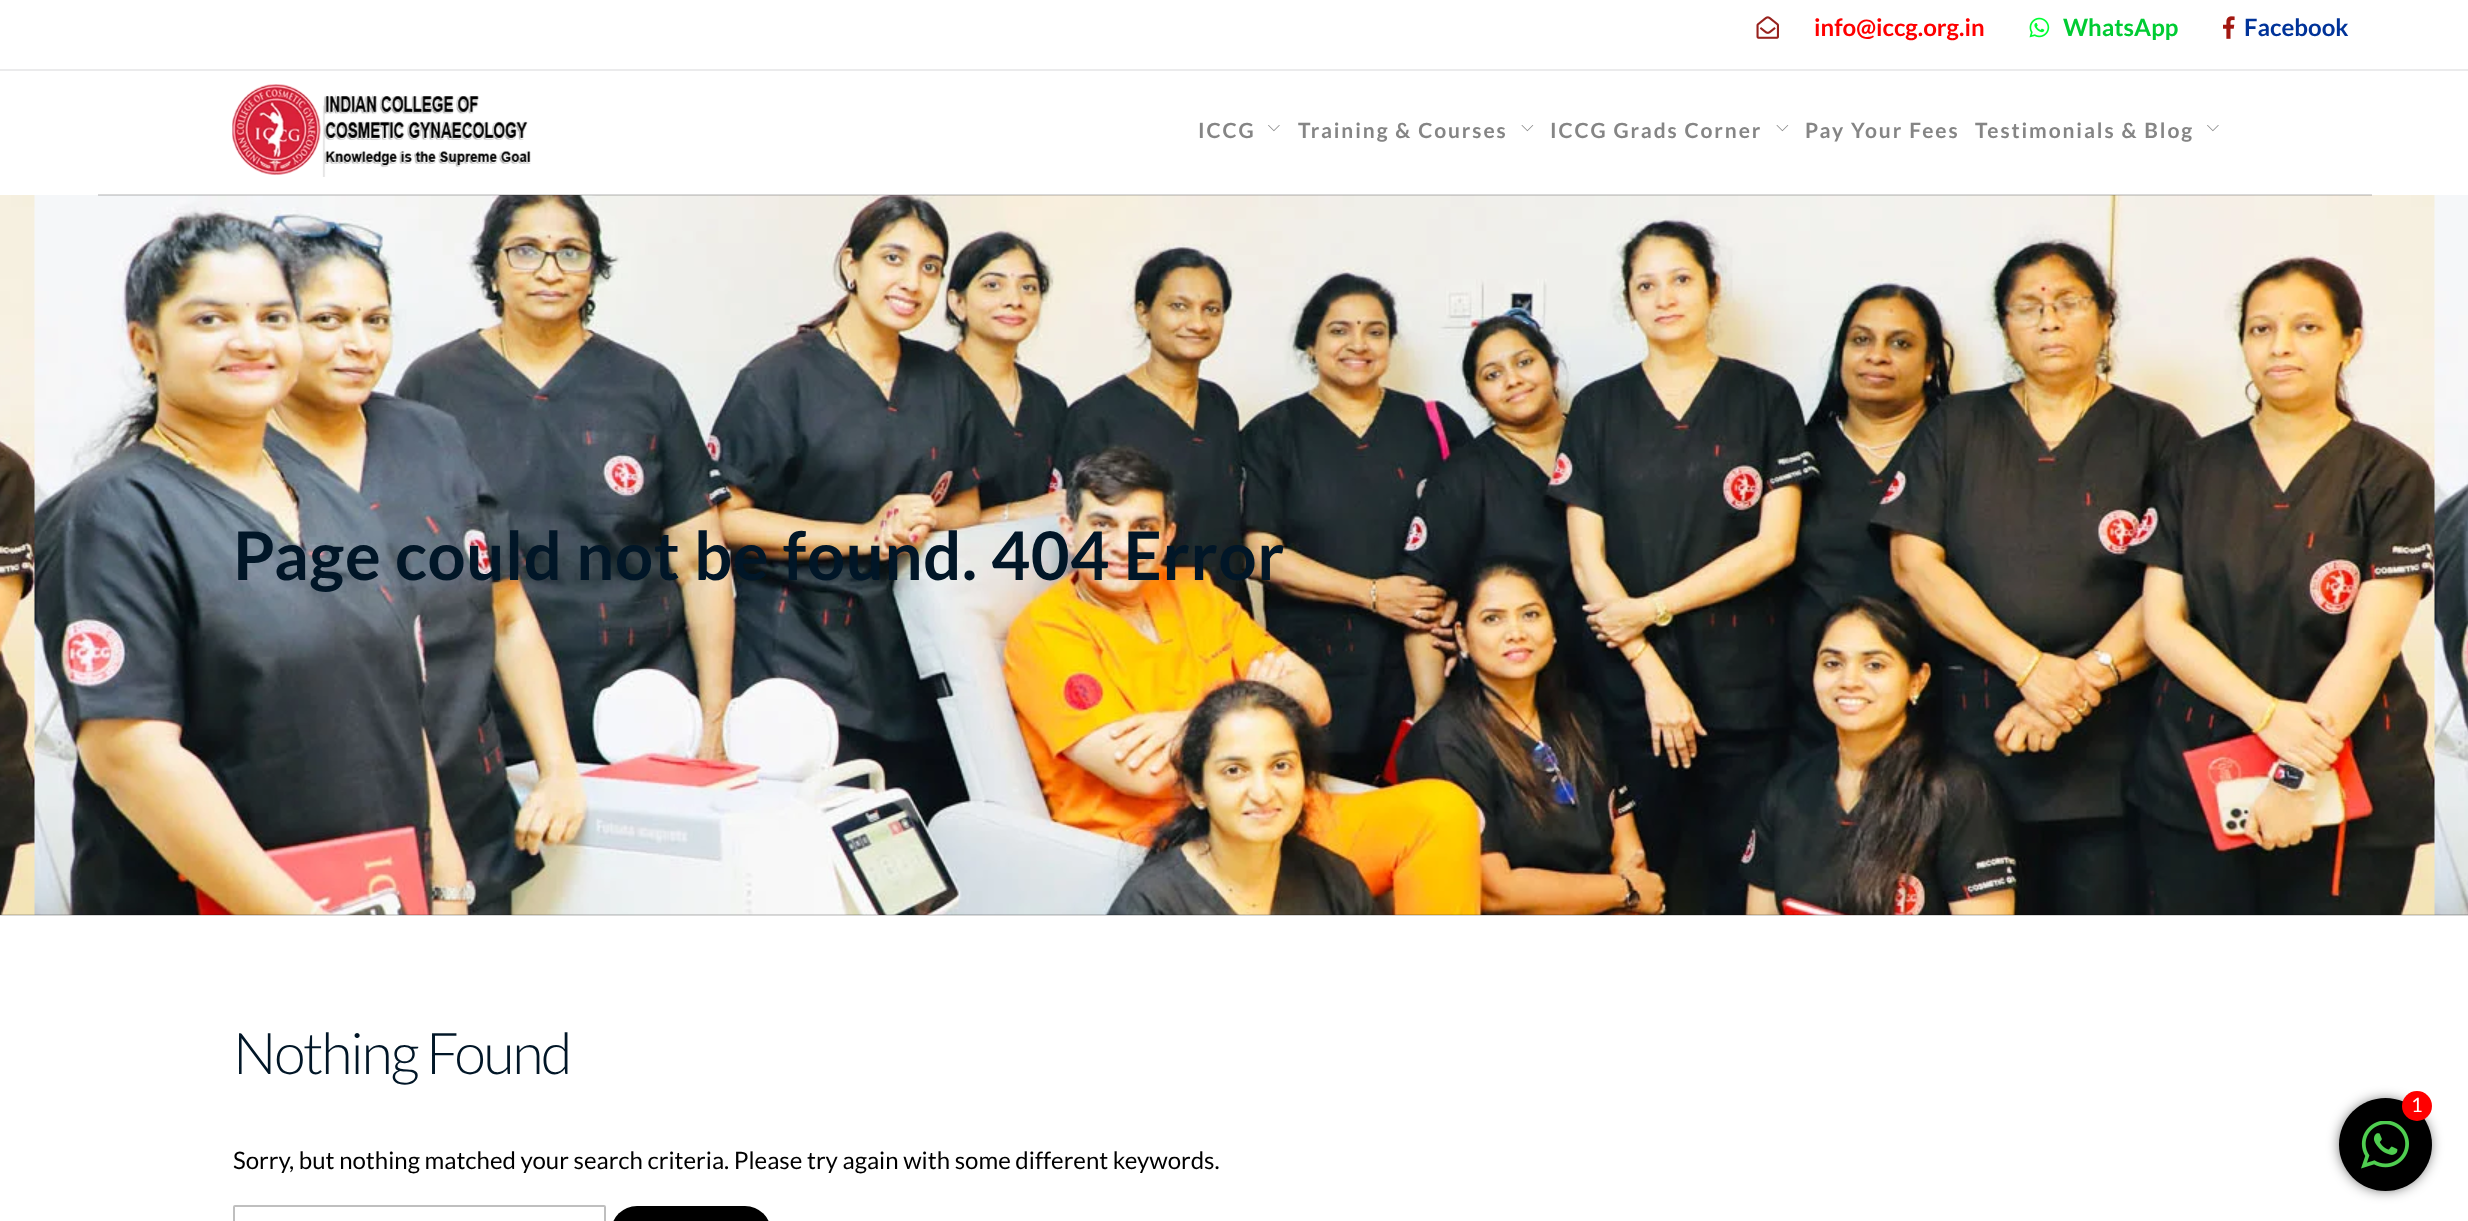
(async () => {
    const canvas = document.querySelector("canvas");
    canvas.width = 2468;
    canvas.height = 1221;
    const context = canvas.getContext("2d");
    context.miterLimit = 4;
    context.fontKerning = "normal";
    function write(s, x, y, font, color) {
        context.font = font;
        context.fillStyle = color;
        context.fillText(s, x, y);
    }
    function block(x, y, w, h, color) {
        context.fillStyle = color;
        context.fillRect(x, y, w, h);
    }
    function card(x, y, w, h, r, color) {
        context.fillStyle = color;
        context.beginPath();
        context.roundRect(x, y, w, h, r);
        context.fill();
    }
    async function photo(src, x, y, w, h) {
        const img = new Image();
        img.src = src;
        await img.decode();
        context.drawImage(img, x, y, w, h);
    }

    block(0, 0, 2468, 1221, "rgb(255, 255, 255)");
    block(0, 69, 2468, 2, "rgb(235, 235, 236)");
    await photo("media/1.png", 1756, 16, 23, 23);
    write("info@iccg.org.in", 1814, 36, "bold 24px Lato", "rgb(255, 0, 0)");
    await photo("media/2.png", 2029, 17, 21, 21);
    write("WhatsApp", 2063, 36, "bold 24px Lato", "rgb(0, 204, 51)");
    await photo("media/3.png", 2223, 16, 12, 23);
    write("Facebook", 2244, 36, "bold 24px Lato", "rgb(0, 51, 153)");
    await photo("media/4.png", 232, 84, 299, 93);
    context.letterSpacing = "1.9px";
    write("ICCG", 1198, 138, "bold 21px Lato", "rgb(133, 133, 133)");
    await photo("media/5.png", 1268, 125, 12, 7);
    write("Training & Courses", 1298, 138, "bold 21px Lato", "rgb(133, 133, 133)");
    await photo("media/6.png", 1521, 125, 13, 7);
    write("ICCG Grads Corner", 1550, 138, "bold 21px Lato", "rgb(133, 133, 133)");
    await photo("media/6.png", 1776, 125, 13, 7);
    write("Pay Your Fees", 1805, 138, "bold 21px Lato", "rgb(133, 133, 133)");
    write("Testimonials & Blog", 1975, 138, "bold 21px Lato", "rgb(133, 133, 133)");
    await photo("media/5.png", 2207, 125, 12, 7);
    await photo("media/7.png", 0, 195, 2468, 720);
    block(98, 194, 2274, 2, "rgba(0, 0, 0, 0.15)");
    context.letterSpacing = "0.65px";
    write("Page could not be found. 404 Error", 233, 580, "bold 67px Lato", "rgb(1, 22, 39)");
    block(0, 914, 2468, 2, "rgba(0, 0, 0, 0.15)");
    context.letterSpacing = "-2.25px";
    write("Nothing Found", 233, 1074, "300 57.5px Lato", "rgb(1, 22, 39)");
    context.letterSpacing = "0px";
    write("Sorry, but nothing matched your search criteria. Please try again with some different keywords.", 233, 1169, "24px Lato", "rgb(0, 0, 0)");
    context.beginPath();
    context.roundRect(234, 1206, 371, 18, 1);
    context.strokeStyle = "rgb(191, 191, 191)";
    context.lineWidth = 2;
    context.stroke();
    card(611, 1206, 160, 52, 37, "rgb(0, 0, 0)");
    context.filter = "blur(7.5px)";
    context.beginPath();
    context.roundRect(2343, 1103, 84, 84, 42);
    context.fill();
    context.filter = "none";
    context.beginPath();
    context.arc(2385.5, 1144.5, 46.5, 0, Math.PI * 2);
    context.fill();
    context.fillStyle = "rgb(255, 0, 0)";
    context.beginPath();
    context.arc(2417, 1106, 15, 0, Math.PI * 2);
    context.fill();
    write("1", 2411, 1112, "20px Lato", "rgb(255, 255, 255)");
    await photo("media/8.png", 2361, 1121, 48, 48);
})();
